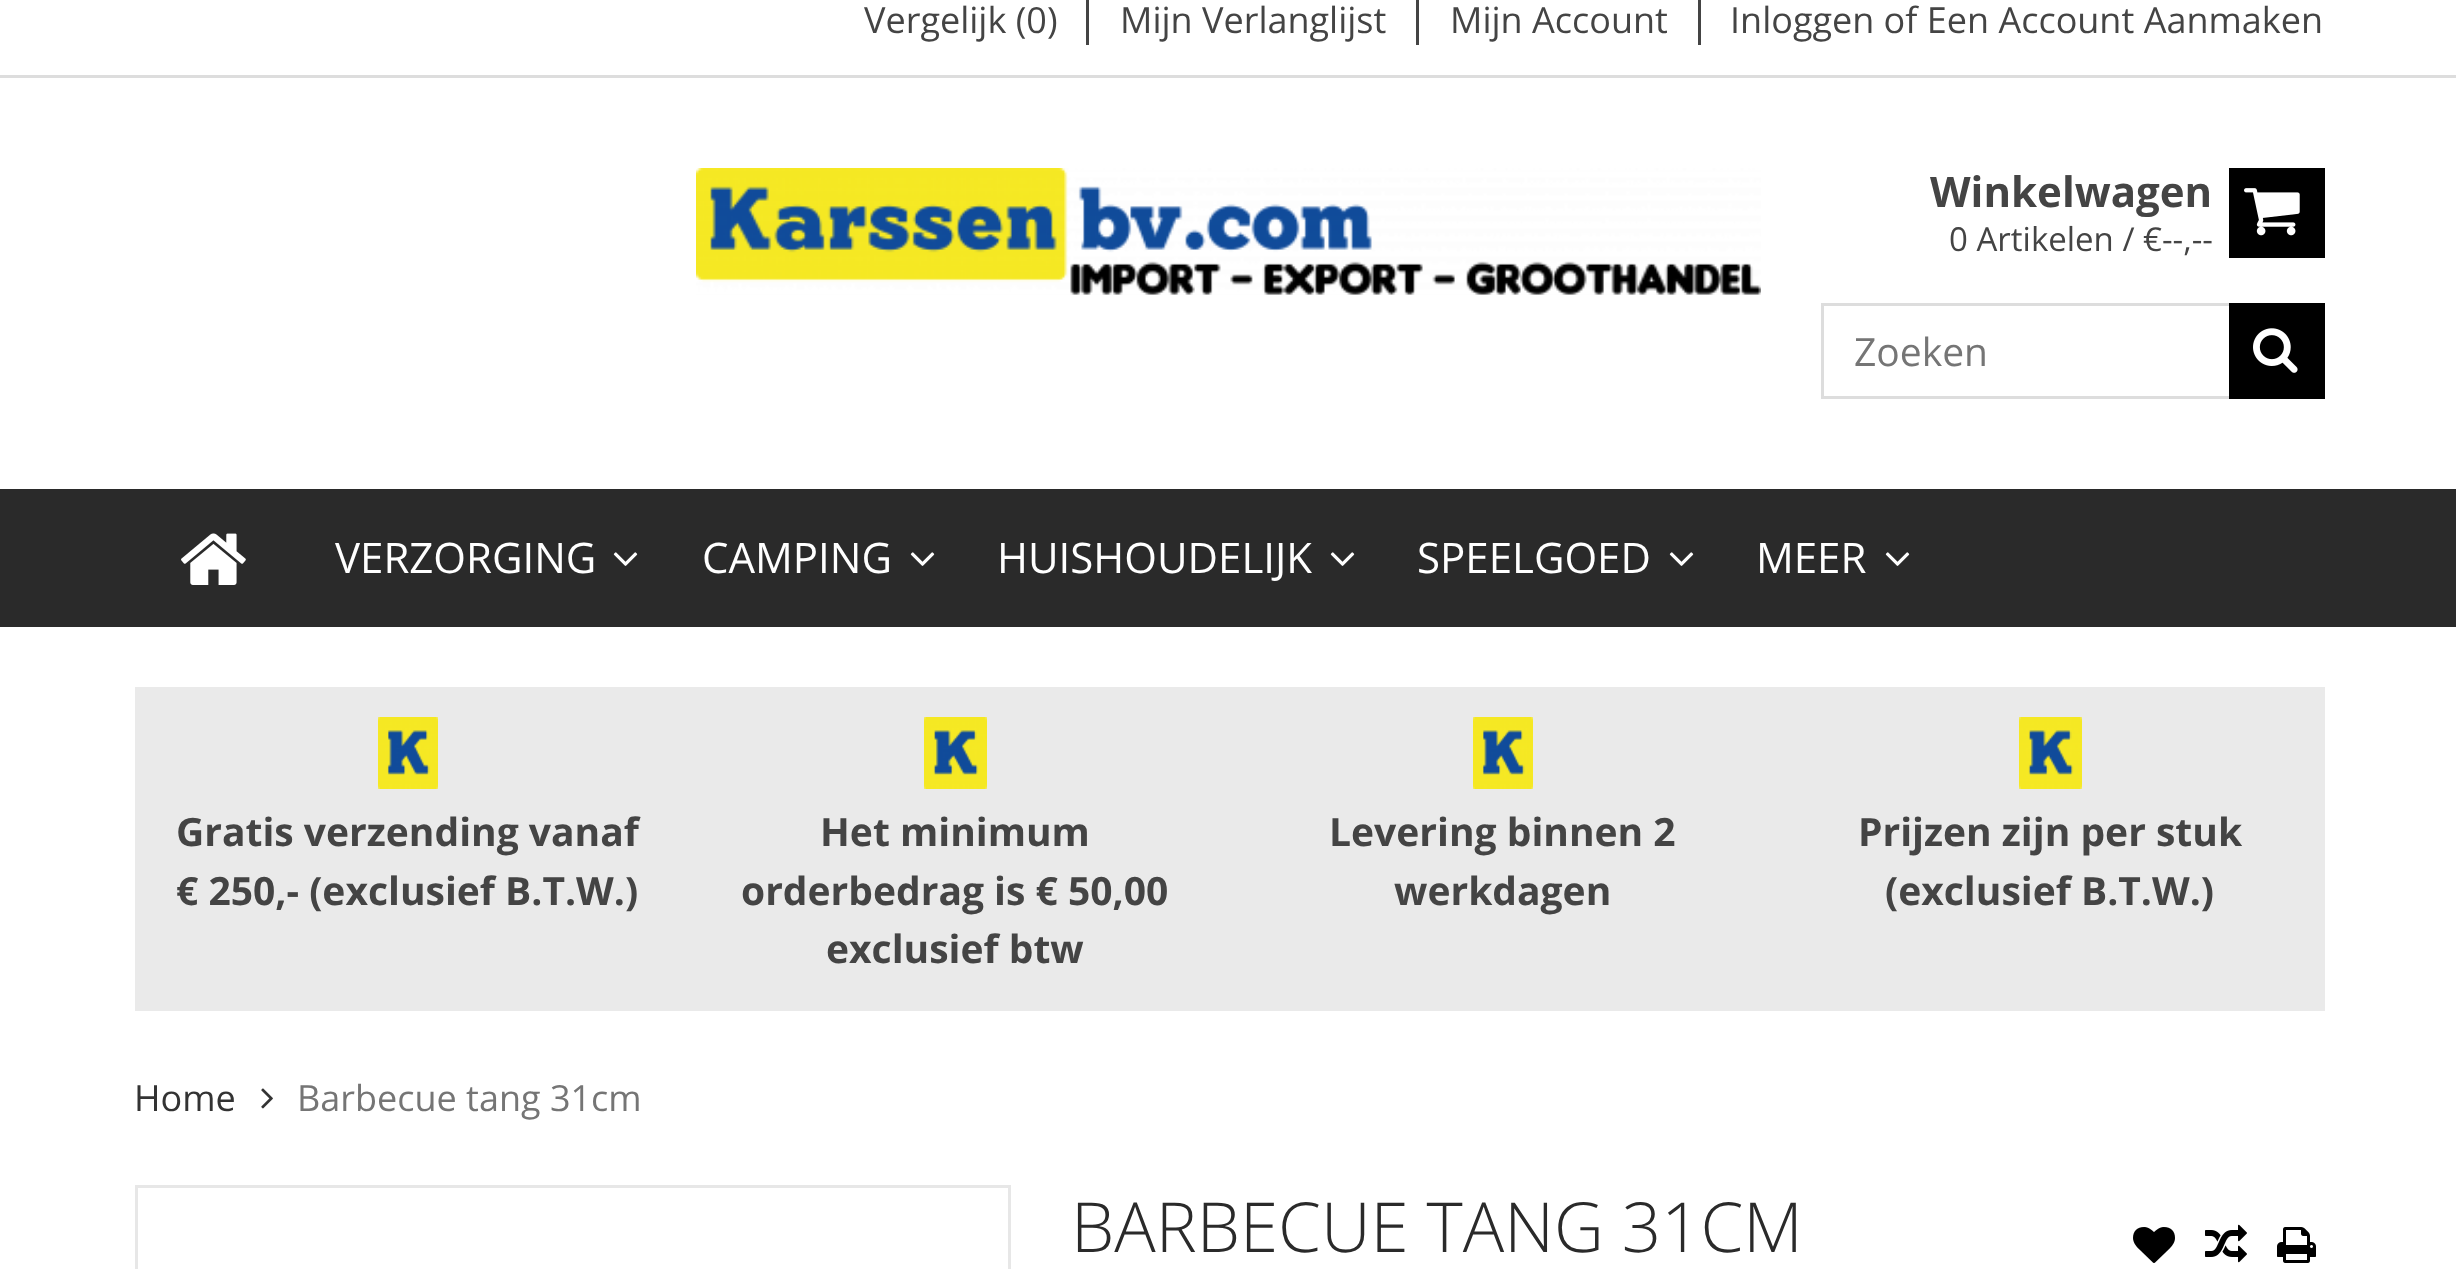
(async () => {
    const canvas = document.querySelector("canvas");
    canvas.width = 2456;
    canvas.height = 1269;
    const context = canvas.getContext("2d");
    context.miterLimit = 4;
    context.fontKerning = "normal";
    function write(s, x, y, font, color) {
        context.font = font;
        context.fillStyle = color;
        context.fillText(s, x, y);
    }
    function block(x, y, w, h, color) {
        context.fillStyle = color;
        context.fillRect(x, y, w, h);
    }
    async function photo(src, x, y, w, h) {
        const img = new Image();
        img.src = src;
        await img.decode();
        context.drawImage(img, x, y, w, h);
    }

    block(0, 0, 2456, 1269, "rgb(255, 255, 255)");
    block(0, 75, 2456, 3, "rgb(221, 221, 221)");
    block(1086, 0, 3, 45, "rgb(68, 68, 68)");
    write("Vergelijk (0)", 864, 33, "36px Open Sans", "rgb(68, 68, 68)");
    block(1416, 0, 3, 45, "rgb(68, 68, 68)");
    write("Mijn Verlanglijst", 1120, 33, "36px Open Sans", "rgb(68, 68, 68)");
    block(1698, 0, 3, 45, "rgb(68, 68, 68)");
    write("Mijn Account", 1450, 33, "36px Open Sans", "rgb(68, 68, 68)");
    write("Inloggen of Een Account Aanmaken", 1730, 33, "36px Open Sans", "rgb(68, 68, 68)");
    await photo("media/1.png", 696, 168, 1065, 127);
    write("Winkelwagen", 1930, 207, "bold 42px Open Sans", "rgb(68, 68, 68)");
    write("0 Artikelen / €--,--", 1949, 251, "33px Open Sans", "rgb(68, 68, 68)");
    block(2229, 168, 96, 90, "rgb(0, 0, 0)");
    await photo("media/2.png", 2244, 188, 56, 48);
    context.strokeStyle = "rgb(221, 221, 221)";
    context.lineWidth = 3;
    context.strokeRect(1822.5, 304.5, 501, 93);
    write("Zoeken", 1854, 366, "39px Open Sans", "rgb(117, 117, 117)");
    block(2229, 303, 96, 96, "rgb(0, 0, 0)");
    await photo("media/3.png", 2253, 328, 45, 45);
    block(0, 489, 2456, 138, "rgb(42, 42, 42)");
    await photo("media/4.png", 181, 533, 65, 52);
    write("VERZORGING", 335, 573, "42px Open Sans", "rgb(255, 255, 255)");
    await photo("media/5.png", 613, 552, 25, 14);
    write("CAMPING", 702, 573, "42px Open Sans", "rgb(255, 255, 255)");
    await photo("media/5.png", 910, 552, 25, 14);
    write("HUISHOUDELIJK", 997, 573, "42px Open Sans", "rgb(255, 255, 255)");
    await photo("media/5.png", 1330, 552, 25, 14);
    write("SPEELGOED", 1417, 573, "42px Open Sans", "rgb(255, 255, 255)");
    await photo("media/5.png", 1669, 552, 25, 14);
    write("MEER", 1756, 573, "42px Open Sans", "rgb(255, 255, 255)");
    await photo("media/5.png", 1885, 552, 25, 14);
    block(135, 687, 2190, 324, "rgb(234, 234, 234)");
    await photo("media/6.png", 378, 717, 60, 72);
    write("Gratis verzending vanaf", 176, 846, "bold 39px Open Sans", "rgb(68, 68, 68)");
    write("€ 250,- (exclusief B.T.W.)", 176, 905, "bold 39px Open Sans", "rgb(68, 68, 68)");
    await photo("media/7.png", 924, 717, 63, 72);
    write("Het minimum", 820, 846, "bold 39px Open Sans", "rgb(68, 68, 68)");
    write("orderbedrag is € 50,00", 741, 905, "bold 39px Open Sans", "rgb(68, 68, 68)");
    write("exclusief btw", 826, 963, "bold 39px Open Sans", "rgb(68, 68, 68)");
    await photo("media/6.png", 1473, 717, 60, 72);
    write("Levering binnen 2", 1329, 846, "bold 39px Open Sans", "rgb(68, 68, 68)");
    write("werkdagen", 1394, 905, "bold 39px Open Sans", "rgb(68, 68, 68)");
    await photo("media/7.png", 2019, 717, 63, 72);
    write("Prijzen zijn per stuk", 1858, 846, "bold 39px Open Sans", "rgb(68, 68, 68)");
    write("(exclusief B.T.W.)", 1885, 905, "bold 39px Open Sans", "rgb(68, 68, 68)");
    write("Home", 134, 1111, "36px Open Sans", "rgb(51, 51, 51)");
    await photo("media/8.png", 261, 1088, 12, 21);
    write("Barbecue tang 31cm", 297, 1111, "36px Open Sans", "rgb(117, 117, 117)");
    context.strokeStyle = "rgb(231, 231, 231)";
    context.strokeRect(136.5, 1186.5, 873, 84);
    write("BARBECUE TANG 31CM", 1071, 1252, "300 69px Open Sans", "rgb(42, 42, 42)");
    await photo("media/9.png", 2133, 1227, 42, 36);
    await photo("media/10.png", 2205, 1224, 42, 39);
    await photo("media/11.png", 2277, 1227, 39, 36);
})();
